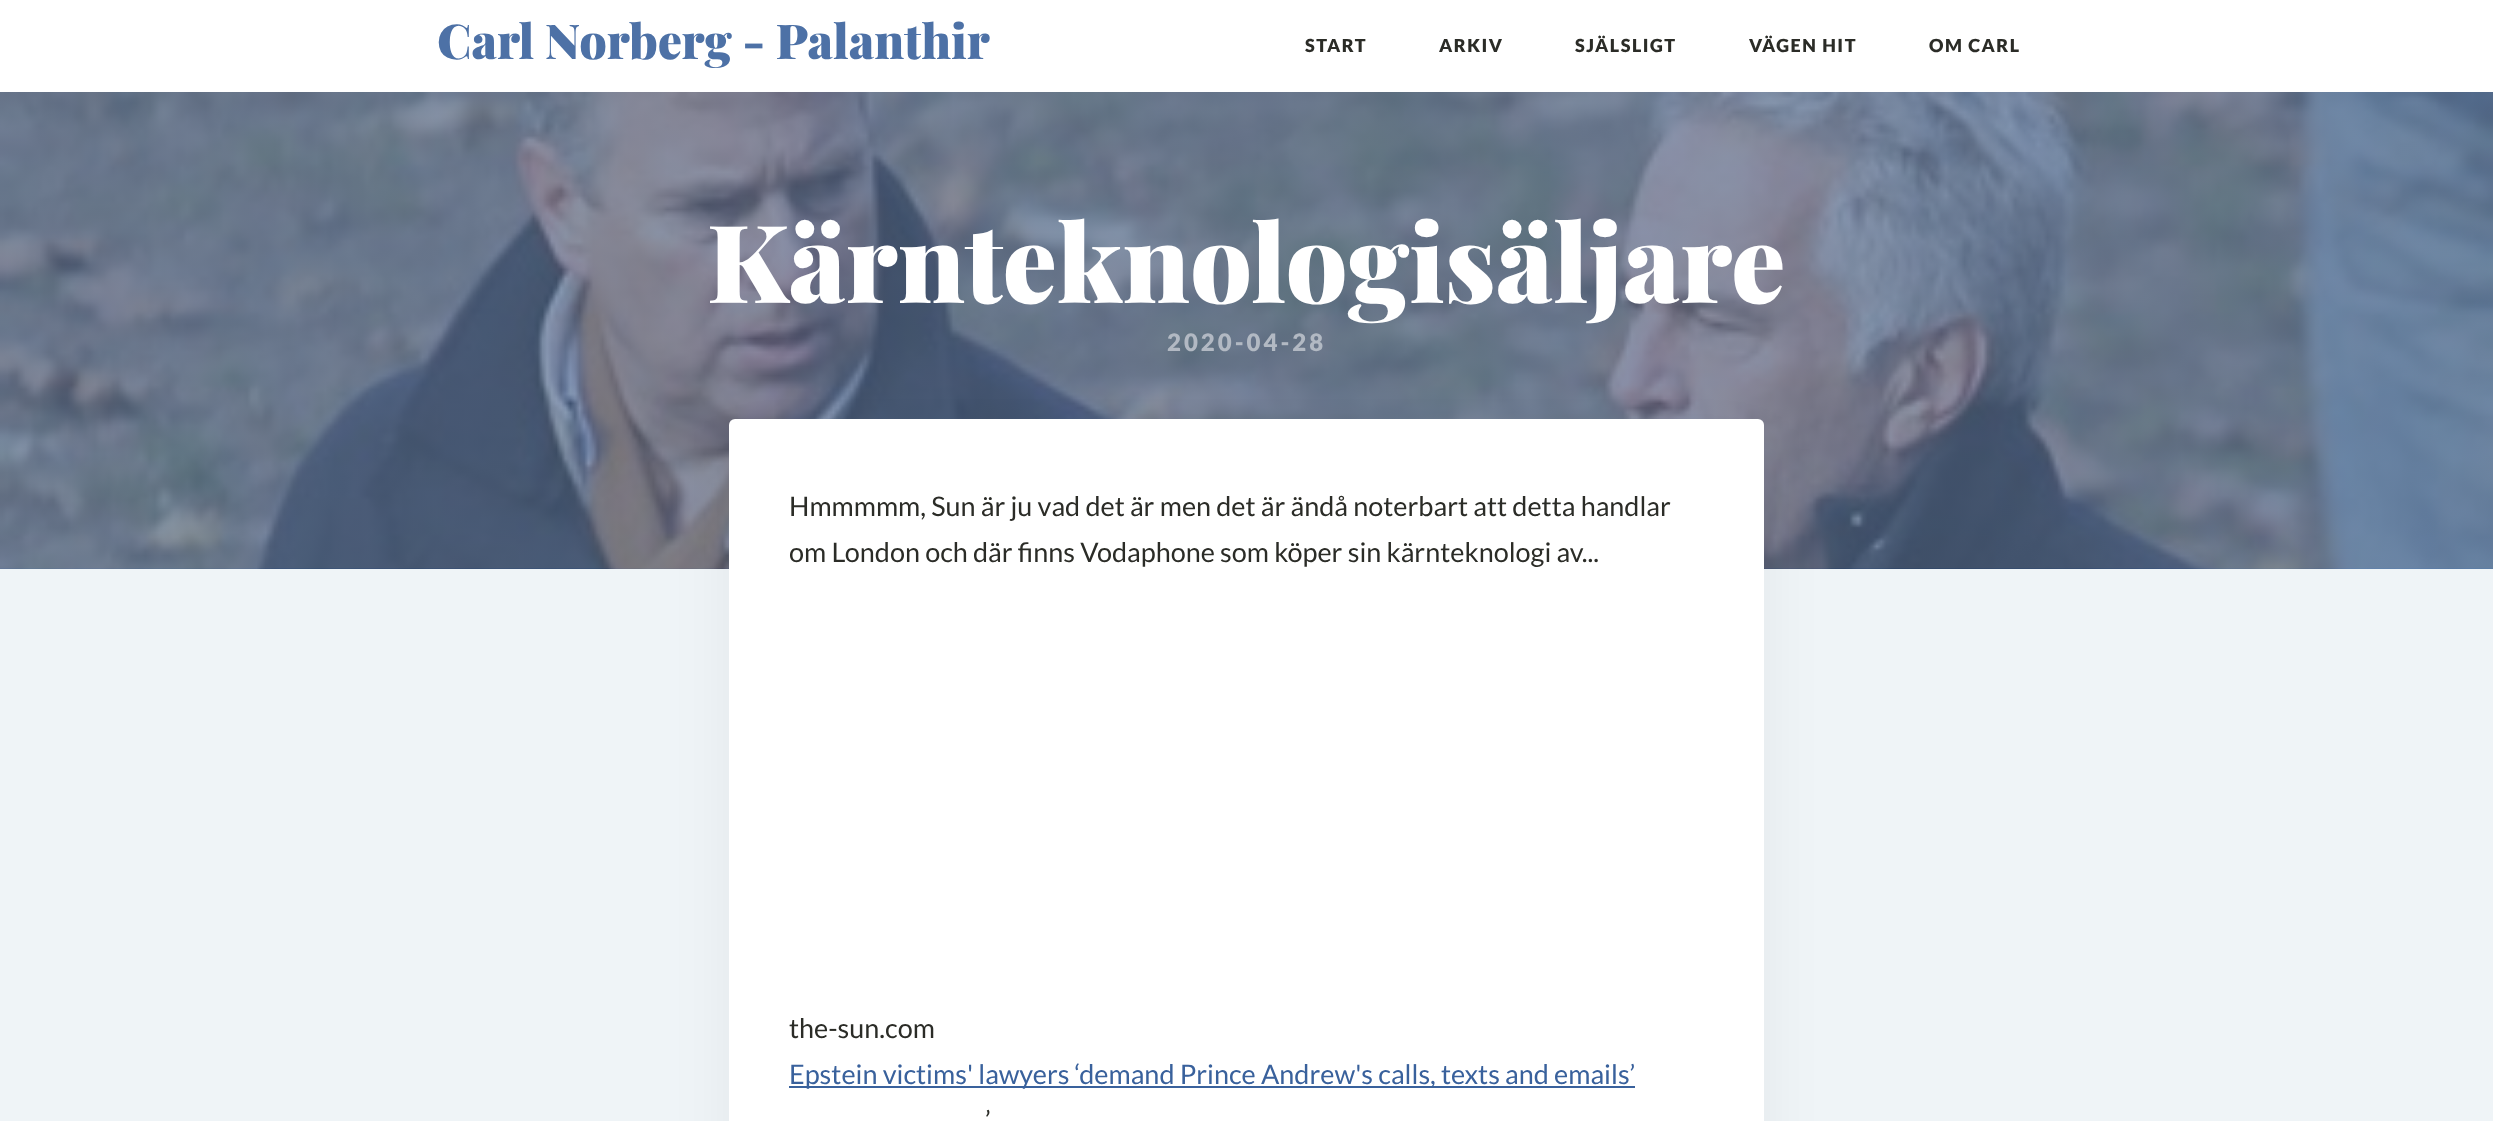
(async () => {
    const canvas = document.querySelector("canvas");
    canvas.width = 2493;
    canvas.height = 1121;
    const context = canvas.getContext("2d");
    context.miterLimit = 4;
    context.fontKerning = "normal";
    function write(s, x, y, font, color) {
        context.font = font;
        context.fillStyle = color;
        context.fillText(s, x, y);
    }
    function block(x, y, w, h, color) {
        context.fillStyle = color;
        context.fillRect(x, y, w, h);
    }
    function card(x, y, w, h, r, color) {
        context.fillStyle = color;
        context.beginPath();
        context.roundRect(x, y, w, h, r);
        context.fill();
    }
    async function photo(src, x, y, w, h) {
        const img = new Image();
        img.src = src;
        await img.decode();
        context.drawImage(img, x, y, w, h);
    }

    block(0, 0, 2493, 1121, "rgb(57, 97, 156)");
    block(0, 0, 2493, 92, "rgb(255, 255, 255)");
    write("Carl Norberg - Palanthir", 437, 59, "900 48px Playfair Display", "rgb(77, 113, 166)");
    context.letterSpacing = "1.5px";
    write("START", 1305, 52, "900 18px Lato", "rgb(43, 44, 39)");
    write("ARKIV", 1439, 52, "900 18px Lato", "rgb(43, 44, 39)");
    write("SJÄLSLIGT", 1575, 52, "900 18px Lato", "rgb(43, 44, 39)");
    write("VÄGEN HIT", 1749, 52, "900 18px Lato", "rgb(43, 44, 39)");
    write("OM CARL", 1929, 52, "900 18px Lato", "rgb(43, 44, 39)");
    await photo("media/1.png", 0, 92, 2493, 477);
    context.letterSpacing = "0px";
    write("Kärnteknologisäljare", 707, 303, "900 108px Playfair Display", "rgb(255, 255, 255)");
    context.letterSpacing = "3px";
    write("2020-04-28", 1167, 351, "900 24px Lato", "rgb(178, 185, 195)");
    block(0, 569, 2493, 552, "rgb(239, 244, 247)");
    context.fillStyle = "rgba(0, 0, 0, 0.05)";
    context.filter = "blur(30px)";
    context.beginPath();
    context.roundRect(729, 449, 1035, 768, 6);
    context.fill();
    context.filter = "none";
    card(729, 419, 1035, 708, 6, "rgb(255, 255, 255)");
    context.letterSpacing = "0px";
    write("Hmmmmm, Sun är ju vad det är men det är ändå noterbart att detta handlar", 789, 516, "27px Lato", "rgb(43, 44, 39)");
    write("om London och där finns Vodaphone som köper sin kärnteknologi av...", 789, 562, "27px Lato", "rgb(43, 44, 39)");
    write("the-sun.com", 789, 1038, "27px Lato", "rgb(43, 44, 39)");
    block(789, 1086, 846, 2, "rgb(57, 97, 156)");
    write("Epstein victims' lawyers ‘demand Prince Andrew's calls, texts and emails’", 789, 1084, "27px Lato", "rgb(57, 97, 156)");
    write("’", 985, 1130, "27px Lato", "rgb(43, 44, 39)");
})();
